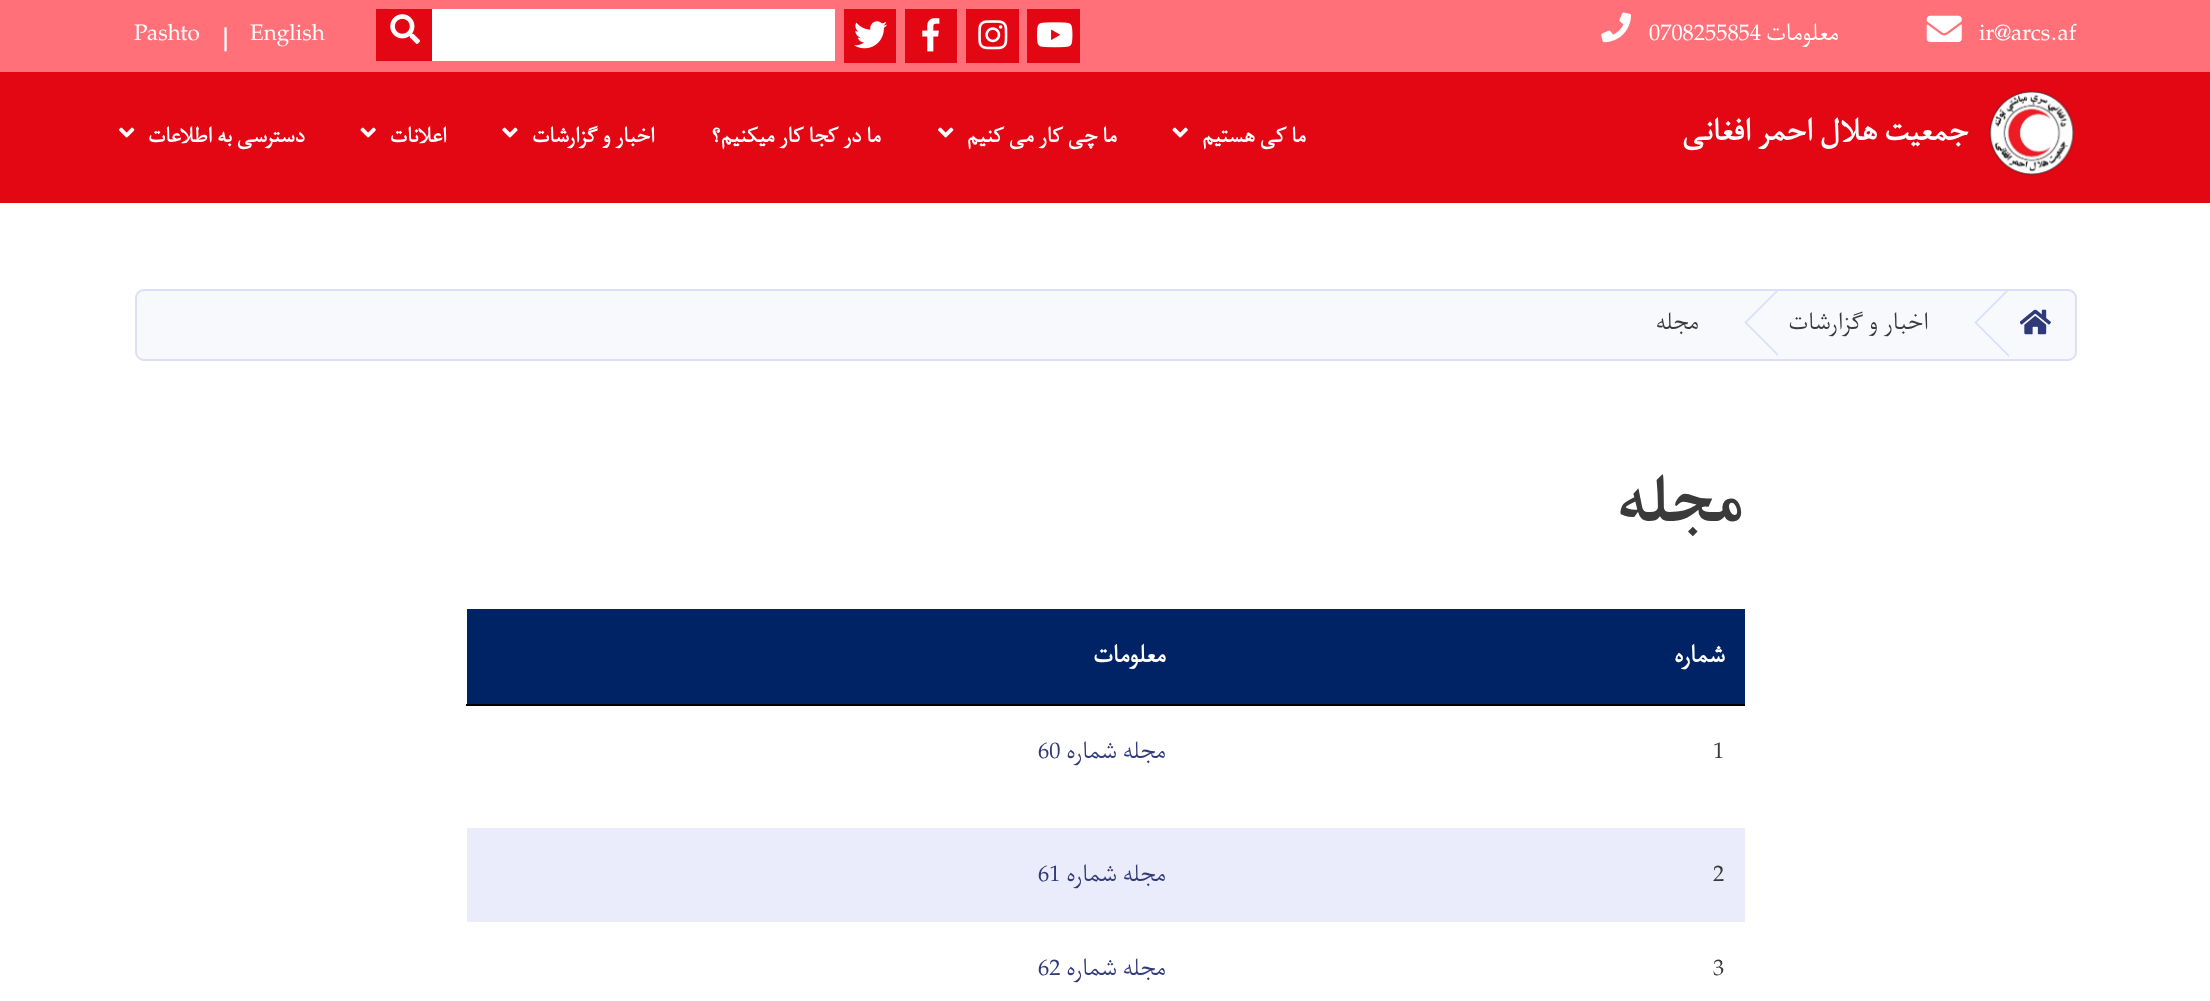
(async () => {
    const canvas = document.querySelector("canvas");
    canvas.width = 2210;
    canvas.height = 1001;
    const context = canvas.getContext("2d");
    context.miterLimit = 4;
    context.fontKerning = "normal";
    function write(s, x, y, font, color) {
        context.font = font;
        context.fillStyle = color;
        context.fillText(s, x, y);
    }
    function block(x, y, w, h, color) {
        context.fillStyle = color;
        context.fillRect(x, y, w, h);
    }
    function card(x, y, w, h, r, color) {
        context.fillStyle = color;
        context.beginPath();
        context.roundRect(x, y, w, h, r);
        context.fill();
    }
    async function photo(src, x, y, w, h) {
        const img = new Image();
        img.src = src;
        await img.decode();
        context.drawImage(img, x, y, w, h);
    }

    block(0, 0, 2210, 1001, "rgb(255, 255, 255)");
    block(0, 0, 2210, 72, "rgb(255, 112, 121)");
    write("ir@arcs.af", 1979, 40, "28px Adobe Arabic", "rgb(255, 255, 255)");
    await photo("media/1.png", 1926, 15, 36, 27);
    context.direction = "rtl";
    write("معلومات", 1839, 40, "28px Adobe Arabic", "rgb(255, 255, 255)");
    context.direction = "ltr";
    write("0708255854", 1649, 40, "28px Adobe Arabic", "rgb(255, 255, 255)");
    await photo("media/2.png", 1601, 12, 30, 31);
    block(1027, 9, 53, 54, "rgb(227, 6, 19)");
    await photo("media/3.png", 1037, 22, 36, 26);
    block(966, 9, 53, 54, "rgb(227, 6, 19)");
    await photo("media/4.png", 978, 20, 30, 30);
    block(905, 9, 52, 54, "rgb(227, 6, 19)");
    await photo("media/5.png", 922, 18, 18, 34);
    block(844, 9, 52, 54, "rgb(227, 6, 19)");
    await photo("media/6.png", 854, 21, 34, 28);
    block(432, 9, 403, 52, "rgb(255, 255, 255)");
    block(376, 9, 56, 52, "rgb(227, 6, 19)");
    await photo("media/7.png", 390, 14, 30, 30);
    write("English", 250, 40, "28px Adobe Arabic", "rgb(255, 255, 255)");
    write("|", 223, 46, "28px Adobe Arabic", "rgb(255, 255, 255)");
    write("Pashto", 134, 40, "28px Adobe Arabic", "rgb(255, 255, 255)");
    block(0, 72, 2210, 131, "rgb(227, 6, 19)");
    context.direction = "rtl";
    write("ما کی هستیم", 1306, 142, "bold 24.5px Adobe Arabic", "rgb(255, 255, 255)");
    await photo("media/8.png", 1172, 127, 16, 11);
    write("ما چی کار می کنیم", 1117, 142, "bold 24.5px Adobe Arabic", "rgb(255, 255, 255)");
    await photo("media/9.png", 938, 127, 16, 11);
    write("ما در کجا کار میکنیم؟", 881, 142, "bold 24.5px Adobe Arabic", "rgb(255, 255, 255)");
    write("اخبار و گزارشات", 655, 142, "bold 24.5px Adobe Arabic", "rgb(255, 255, 255)");
    await photo("media/10.png", 502, 127, 16, 11);
    write("اعلانات", 447, 142, "bold 24.5px Adobe Arabic", "rgb(255, 255, 255)");
    await photo("media/8.png", 360, 127, 16, 11);
    write("دسترسی به اطلاعات", 305, 142, "bold 24.5px Adobe Arabic", "rgb(255, 255, 255)");
    await photo("media/9.png", 119, 127, 16, 11);
    await photo("media/11.png", 1989, 90, 86, 86);
    write("جمعیت هلال احمر افغانی", 1968, 140, "bold 35px Adobe Arabic", "rgb(255, 255, 255)");
    card(135, 289, 1942, 72, 9, "rgb(248, 249, 253)");
    context.beginPath();
    context.roundRect(136, 290, 1940, 70, 8);
    context.strokeStyle = "rgba(191, 198, 242, 0.5)";
    context.lineWidth = 2;
    context.stroke();
    await photo("media/12.png", 2020, 309, 31, 26);
    context.save();
    context.beginPath();
    context.rect(1789, 291, 220, 68);
    context.clip();
    context.beginPath();
    context.moveTo(2030, 268);
    context.lineTo(2084.5, 322.5);
    context.lineTo(2030, 377);
    context.lineTo(1975.5, 322.5);
    context.closePath();
    context.strokeStyle = "rgb(220, 224, 248)";
    context.lineWidth = 1.8;
    context.stroke();
    context.restore();
    write("اخبار و گزارشات", 1929, 329, "28px Adobe Arabic", "rgb(58, 58, 58)");
    context.save();
    context.beginPath();
    context.rect(1656, 291, 122, 68);
    context.clip();
    context.beginPath();
    context.moveTo(1800, 268);
    context.lineTo(1854.5, 322.5);
    context.lineTo(1800, 377);
    context.lineTo(1745.5, 322.5);
    context.closePath();
    context.strokeStyle = "rgb(220, 224, 248)";
    context.lineWidth = 1.8;
    context.stroke();
    context.restore();
    write("مجله", 1699, 329, "28px Adobe Arabic", "rgb(58, 58, 58)");
    write("مجله", 1744, 521, "bold 74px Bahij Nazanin", "rgb(58, 58, 58)");
    block(466, 704, 1279, 2, "rgb(0, 0, 0)");
    block(467, 609, 1278, 95, "rgb(0, 35, 102)");
    write("شماره", 1725, 662, "bold 28px Adobe Arabic", "rgb(255, 255, 255)");
    write("معلومات", 1166, 662, "bold 28px Adobe Arabic", "rgb(255, 255, 255)");
    context.direction = "ltr";
    write("1", 1713, 758, "28px Adobe Arabic", "rgb(58, 58, 58)");
    context.direction = "rtl";
    write("مجله شماره", 1166, 758, "28px Adobe Arabic", "rgb(48, 58, 121)");
    context.direction = "ltr";
    write("60", 1038, 758, "28px Adobe Arabic", "rgb(48, 58, 121)");
    block(467, 828, 1278, 94, "rgb(234, 236, 251)");
    write("2", 1713, 881, "28px Adobe Arabic", "rgb(58, 58, 58)");
    context.direction = "rtl";
    write("مجله شماره", 1166, 881, "28px Adobe Arabic", "rgb(48, 58, 121)");
    context.direction = "ltr";
    write("61", 1038, 881, "28px Adobe Arabic", "rgb(48, 58, 121)");
    write("3", 1713, 975, "28px Adobe Arabic", "rgb(58, 58, 58)");
    context.direction = "rtl";
    write("مجله شماره", 1166, 975, "28px Adobe Arabic", "rgb(48, 58, 121)");
    context.direction = "ltr";
    write("62", 1038, 975, "28px Adobe Arabic", "rgb(48, 58, 121)");
})();
